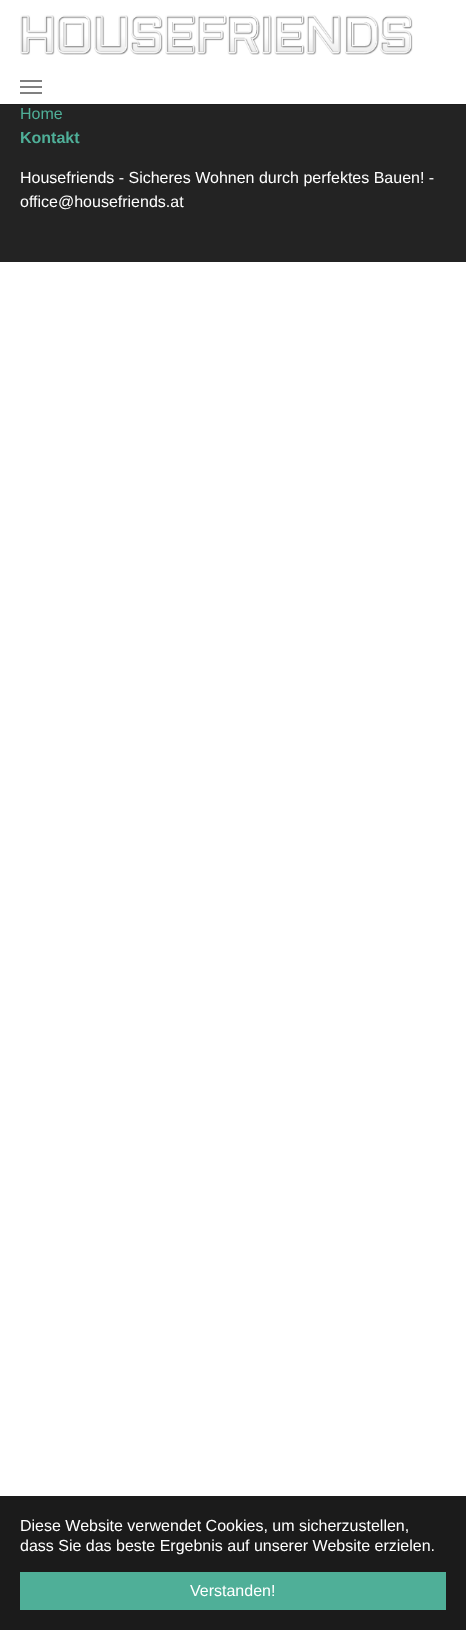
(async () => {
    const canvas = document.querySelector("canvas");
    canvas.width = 466;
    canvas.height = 1630;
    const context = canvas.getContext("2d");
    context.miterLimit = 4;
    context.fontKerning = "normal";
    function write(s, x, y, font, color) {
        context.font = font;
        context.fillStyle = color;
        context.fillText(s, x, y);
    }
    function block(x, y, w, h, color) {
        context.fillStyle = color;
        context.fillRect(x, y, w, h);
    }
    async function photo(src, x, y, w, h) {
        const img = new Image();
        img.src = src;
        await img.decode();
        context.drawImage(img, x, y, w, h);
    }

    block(0, 0, 466, 1630, "rgb(255, 255, 255)");
    block(0, 104, 466, 1, "rgb(30, 30, 30)");
    await photo("media/1.png", 20, 15, 393, 40);
    block(20, 86, 22, 2, "rgb(128, 128, 128)");
    block(20, 80, 22, 2, "rgb(128, 128, 128)");
    block(20, 92, 22, 2, "rgb(128, 128, 128)");
    block(0, 105, 466, 157, "rgb(35, 35, 35)");
    write("Home", 20, 119, "16px Liberation Sans", "rgb(79, 175, 152)");
    write("Kontakt", 20, 143, "bold 16px Liberation Sans", "rgb(79, 175, 152)");
    write("Housefriends - Sicheres Wohnen durch perfektes Bauen! -", 20, 183, "16px Liberation Sans", "rgb(255, 255, 255)");
    write("office@housefriends.at", 20, 207, "16px Liberation Sans", "rgb(255, 255, 255)");
    block(0, 1496, 466, 134, "rgb(27, 27, 27)");
    write("Diese Website verwendet Cookies, um sicherzustellen,", 20, 1531, "16px Liberation Sans", "rgb(255, 255, 255)");
    write("dass Sie das beste Ergebnis auf unserer Website erzielen.", 20, 1551, "16px Liberation Sans", "rgb(255, 255, 255)");
    block(20, 1572, 426, 38, "rgb(79, 175, 152)");
    write("Verstanden!", 190, 1596, "16px Liberation Sans", "rgb(255, 255, 255)");
})();
